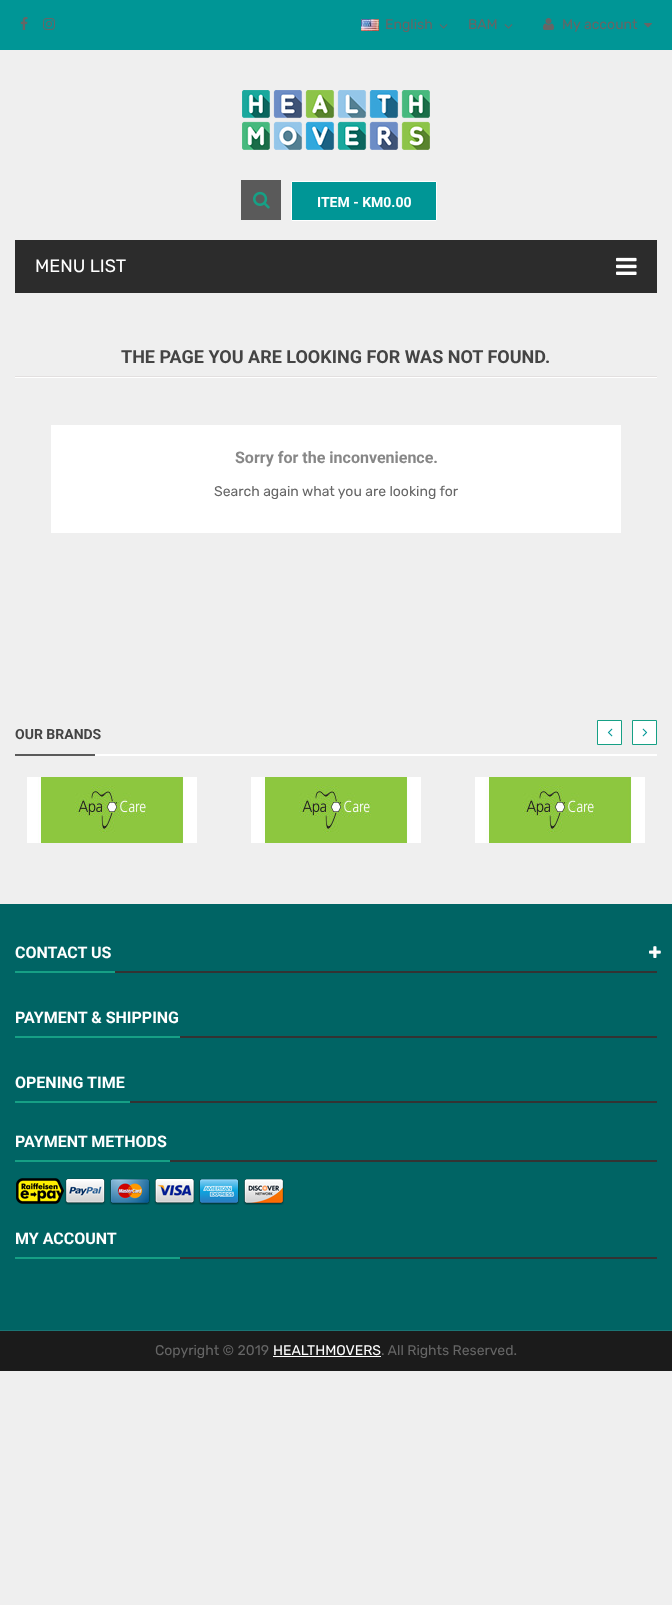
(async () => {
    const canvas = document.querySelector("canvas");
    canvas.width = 672;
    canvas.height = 1605;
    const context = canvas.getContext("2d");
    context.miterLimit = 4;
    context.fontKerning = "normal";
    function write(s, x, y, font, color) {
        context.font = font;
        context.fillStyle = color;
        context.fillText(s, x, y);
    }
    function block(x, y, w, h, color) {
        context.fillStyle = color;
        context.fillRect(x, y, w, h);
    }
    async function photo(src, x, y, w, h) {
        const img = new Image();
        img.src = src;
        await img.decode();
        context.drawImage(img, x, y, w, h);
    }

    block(0, 0, 672, 1605, "rgb(239, 239, 239)");
    block(0, 0, 672, 50, "rgb(0, 150, 150)");
    await photo("media/1.png", 20, 17, 8, 13);
    await photo("media/2.png", 43, 18, 12, 12);
    await photo("media/3.png", 361, 19, 18, 12);
    write("English", 385, 29, "14px Rubik", "rgb(102, 102, 102)");
    await photo("media/4.png", 439, 24, 9, 5);
    write("BAM", 468, 29, "14px Rubik", "rgb(102, 102, 102)");
    await photo("media/4.png", 504, 24, 9, 5);
    await photo("media/5.png", 543, 18, 11, 12);
    write("My account", 562, 29, "14px Rubik", "rgb(102, 102, 102)");
    await photo("media/6.png", 644, 23, 8, 5);
    await photo("media/7.png", 242, 90, 188, 60);
    block(241, 180, 40, 40, "rgb(90, 90, 90)");
    await photo("media/8.png", 253, 191, 17, 18);
    context.fillStyle = "rgb(0, 150, 150)";
    context.beginPath();
    context.rect(291.5, 181.5, 145, 39);
    context.fill();
    context.strokeStyle = "rgb(255, 255, 255)";
    context.stroke();
    write("ITEM - KM0.00", 317, 207, "bold 14px Roboto", "rgb(255, 255, 255)");
    block(15, 240, 642, 53, "rgb(44, 44, 44)");
    write("MENU LIST", 35, 272, "18px Rubik", "rgb(255, 255, 255)");
    await photo("media/9.png", 616, 257, 21, 18);
    block(15, 376, 642, 1, "rgb(226, 223, 223)");
    write("THE PAGE YOU ARE LOOKING FOR WAS NOT FOUND.", 121, 363, "bold 18px Roboto", "rgb(68, 68, 68)");
    block(15, 377, 642, 1, "rgb(255, 255, 255)");
    block(51, 425, 570, 108, "rgb(255, 255, 255)");
    write("Sorry for the inconvenience.", 235, 463, "bold 16px Roboto", "rgb(135, 135, 135)");
    write("Search again what you are looking for", 214, 496, "14px Rubik", "rgb(102, 102, 102)");
    context.fillStyle = "rgb(255, 255, 255)";
    context.beginPath();
    context.rect(597.5, 720.5, 24, 24);
    context.fill();
    context.strokeStyle = "rgb(22, 160, 133)";
    context.stroke();
    await photo("media/10.png", 607, 728, 6, 9);
    context.beginPath();
    context.rect(632.5, 720.5, 24, 24);
    context.fill();
    context.stroke();
    await photo("media/11.png", 642, 728, 6, 9);
    await photo("media/12.png", 27, 777, 170, 66);
    await photo("media/12.png", 251, 777, 170, 66);
    await photo("media/12.png", 475, 777, 170, 66);
    block(95, 754, 562, 2, "rgb(255, 255, 255)");
    write("OUR BRANDS", 15, 739, "bold 14px Roboto", "rgb(68, 68, 68)");
    block(15, 754, 80, 2, "rgb(90, 90, 90)");
    block(0, 904, 672, 426, "rgb(0, 100, 100)");
    block(115, 971, 542, 2, "rgb(51, 51, 51)");
    write("CONTACT US", 15, 958, "bold 16px Roboto", "rgb(255, 255, 255)");
    block(15, 971, 100, 2, "rgb(22, 160, 133)");
    await photo("media/13.png", 649, 946, 12, 12);
    block(180, 1036, 477, 2, "rgb(51, 51, 51)");
    write("PAYMENT & SHIPPING", 15, 1023, "bold 16px Roboto", "rgb(255, 255, 255)");
    block(15, 1036, 165, 2, "rgb(22, 160, 133)");
    block(130, 1101, 527, 2, "rgb(51, 51, 51)");
    write("OPENING TIME", 15, 1088, "bold 16px Roboto", "rgb(255, 255, 255)");
    block(15, 1101, 115, 2, "rgb(22, 160, 133)");
    block(170, 1160, 487, 2, "rgb(51, 51, 51)");
    write("PAYMENT METHODS", 15, 1147, "bold 16px Roboto", "rgb(255, 255, 255)");
    block(15, 1160, 155, 2, "rgb(22, 160, 133)");
    await photo("media/14.png", 16, 1178, 268, 27);
    block(180, 1257, 477, 2, "rgb(51, 51, 51)");
    write("MY ACCOUNT", 15, 1244, "bold 16px Roboto", "rgb(255, 255, 255)");
    block(15, 1257, 165, 2, "rgb(22, 160, 133)");
    block(0, 1330, 672, 1, "rgb(26, 116, 116)");
    block(0, 1331, 672, 40, "rgb(27, 27, 27)");
    write("Copyright © 2019", 155, 1355, "14px Rubik", "rgb(102, 102, 102)");
    write("HEALTHMOVERS", 273, 1355, "14px Rubik", "rgb(255, 255, 255)");
    block(273, 1356, 108, 1, "rgb(255, 255, 255)");
    write(". All Rights Reserved.", 381, 1355, "14px Rubik", "rgb(102, 102, 102)");
})();
